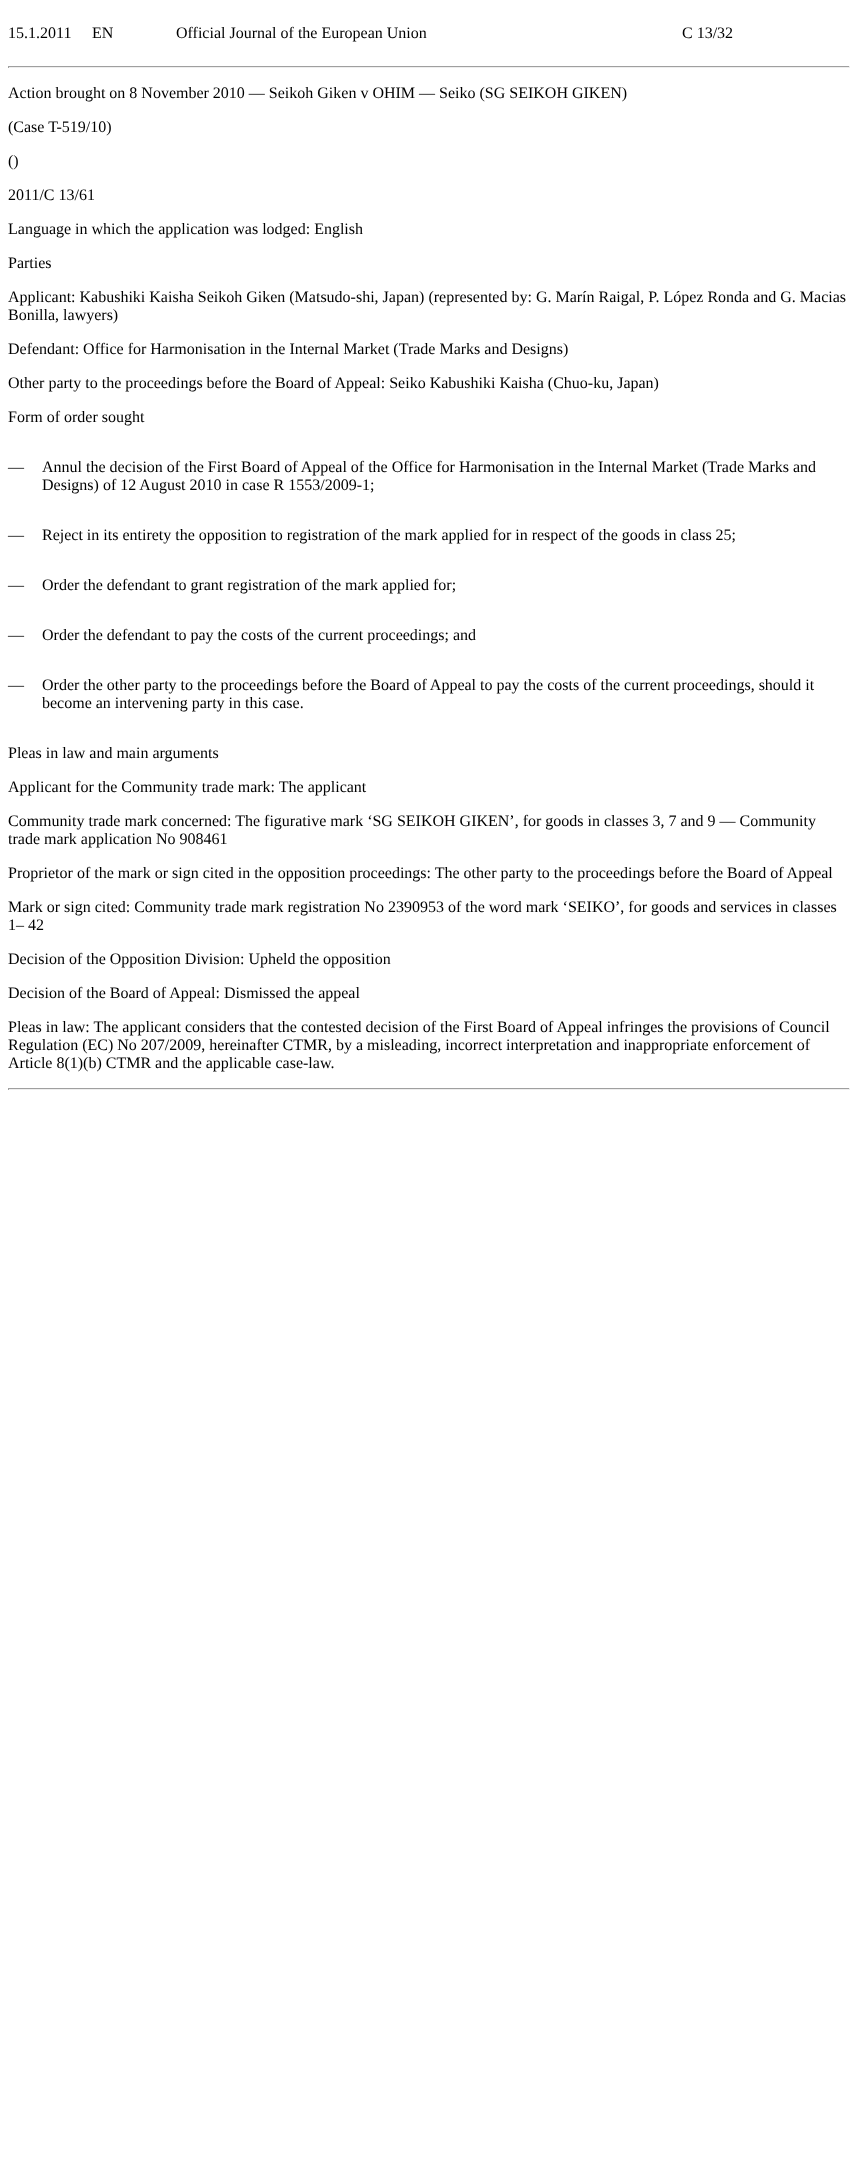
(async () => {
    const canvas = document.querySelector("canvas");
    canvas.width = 858;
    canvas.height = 2163;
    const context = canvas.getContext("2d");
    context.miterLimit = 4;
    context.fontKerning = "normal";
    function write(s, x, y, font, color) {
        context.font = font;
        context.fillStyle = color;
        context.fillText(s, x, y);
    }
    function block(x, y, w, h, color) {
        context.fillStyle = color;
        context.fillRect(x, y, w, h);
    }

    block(0, 0, 858, 2163, "rgb(255, 255, 255)");
    write("15.1.2011", 8, 38, "16px Liberation Serif", "rgb(0, 0, 0)");
    write("EN", 92, 38, "16px Liberation Serif", "rgb(0, 0, 0)");
    write("Official Journal of the European Union", 176, 38, "16px Liberation Serif", "rgb(0, 0, 0)");
    write("C 13/32", 682, 38, "16px Liberation Serif", "rgb(0, 0, 0)");
    block(8, 66, 842, 1, "rgb(159, 159, 159)");
    block(849, 66, 1, 2, "rgb(238, 238, 238)");
    block(8, 67, 842, 1, "rgb(238, 238, 238)");
    block(8, 66, 1, 2, "rgb(159, 159, 159)");
    write("Action brought on 8 November 2010 — Seikoh Giken v OHIM — Seiko (SG SEIKOH GIKEN)", 8, 98, "16px Liberation Serif", "rgb(0, 0, 0)");
    write("(Case T-519/10)", 8, 132, "16px Liberation Serif", "rgb(0, 0, 0)");
    write("()", 8, 166, "16px Liberation Serif", "rgb(0, 0, 0)");
    write("2011/C 13/61", 8, 200, "16px Liberation Serif", "rgb(0, 0, 0)");
    write("Language in which the application was lodged: English", 8, 234, "16px Liberation Serif", "rgb(0, 0, 0)");
    write("Parties", 8, 268, "16px Liberation Serif", "rgb(0, 0, 0)");
    write("Applicant: Kabushiki Kaisha Seikoh Giken (Matsudo-shi, Japan) (represented by: G. Marín Raigal, P. López Ronda and G. Macias", 8, 302, "16px Liberation Serif", "rgb(0, 0, 0)");
    write("Bonilla, lawyers)", 8, 320, "16px Liberation Serif", "rgb(0, 0, 0)");
    write("Defendant: Office for Harmonisation in the Internal Market (Trade Marks and Designs)", 8, 354, "16px Liberation Serif", "rgb(0, 0, 0)");
    write("Other party to the proceedings before the Board of Appeal: Seiko Kabushiki Kaisha (Chuo-ku, Japan)", 8, 388, "16px Liberation Serif", "rgb(0, 0, 0)");
    write("Form of order sought", 8, 422, "16px Liberation Serif", "rgb(0, 0, 0)");
    write("—", 8, 472, "16px Liberation Serif", "rgb(0, 0, 0)");
    write("Annul the decision of the First Board of Appeal of the Office for Harmonisation in the Internal Market (Trade Marks and", 42, 472, "16px Liberation Serif", "rgb(0, 0, 0)");
    write("Designs) of 12 August 2010 in case R 1553/2009-1;", 42, 490, "16px Liberation Serif", "rgb(0, 0, 0)");
    write("—", 8, 540, "16px Liberation Serif", "rgb(0, 0, 0)");
    write("Reject in its entirety the opposition to registration of the mark applied for in respect of the goods in class 25;", 42, 540, "16px Liberation Serif", "rgb(0, 0, 0)");
    write("—", 8, 590, "16px Liberation Serif", "rgb(0, 0, 0)");
    write("Order the defendant to grant registration of the mark applied for;", 42, 590, "16px Liberation Serif", "rgb(0, 0, 0)");
    write("—", 8, 640, "16px Liberation Serif", "rgb(0, 0, 0)");
    write("Order the defendant to pay the costs of the current proceedings; and", 42, 640, "16px Liberation Serif", "rgb(0, 0, 0)");
    write("—", 8, 690, "16px Liberation Serif", "rgb(0, 0, 0)");
    write("Order the other party to the proceedings before the Board of Appeal to pay the costs of the current proceedings, should it", 42, 690, "16px Liberation Serif", "rgb(0, 0, 0)");
    write("become an intervening party in this case.", 42, 708, "16px Liberation Serif", "rgb(0, 0, 0)");
    write("Pleas in law and main arguments", 8, 758, "16px Liberation Serif", "rgb(0, 0, 0)");
    write("Applicant for the Community trade mark: The applicant", 8, 792, "16px Liberation Serif", "rgb(0, 0, 0)");
    write("Community trade mark concerned: The figurative mark ‘SG SEIKOH GIKEN’, for goods in classes 3, 7 and 9 — Community", 8, 826, "16px Liberation Serif", "rgb(0, 0, 0)");
    write("trade mark application No 908461", 8, 844, "16px Liberation Serif", "rgb(0, 0, 0)");
    write("Proprietor of the mark or sign cited in the opposition proceedings: The other party to the proceedings before the Board of Appeal", 8, 878, "16px Liberation Serif", "rgb(0, 0, 0)");
    write("Mark or sign cited: Community trade mark registration No 2390953 of the word mark ‘SEIKO’, for goods and services in classes", 8, 912, "16px Liberation Serif", "rgb(0, 0, 0)");
    write("1– 42", 8, 930, "16px Liberation Serif", "rgb(0, 0, 0)");
    write("Decision of the Opposition Division: Upheld the opposition", 8, 964, "16px Liberation Serif", "rgb(0, 0, 0)");
    write("Decision of the Board of Appeal: Dismissed the appeal", 8, 998, "16px Liberation Serif", "rgb(0, 0, 0)");
    write("Pleas in law: The applicant considers that the contested decision of the First Board of Appeal infringes the provisions of Council", 8, 1032, "16px Liberation Serif", "rgb(0, 0, 0)");
    write("Regulation (EC) No 207/2009, hereinafter CTMR, by a misleading, incorrect interpretation and inappropriate enforcement of", 8, 1050, "16px Liberation Serif", "rgb(0, 0, 0)");
    write("Article 8(1)(b) CTMR and the applicable case-law.", 8, 1068, "16px Liberation Serif", "rgb(0, 0, 0)");
    block(8, 1088, 842, 1, "rgb(159, 159, 159)");
    block(849, 1088, 1, 2, "rgb(238, 238, 238)");
    block(8, 1089, 842, 1, "rgb(238, 238, 238)");
    block(8, 1088, 1, 2, "rgb(159, 159, 159)");
})();
